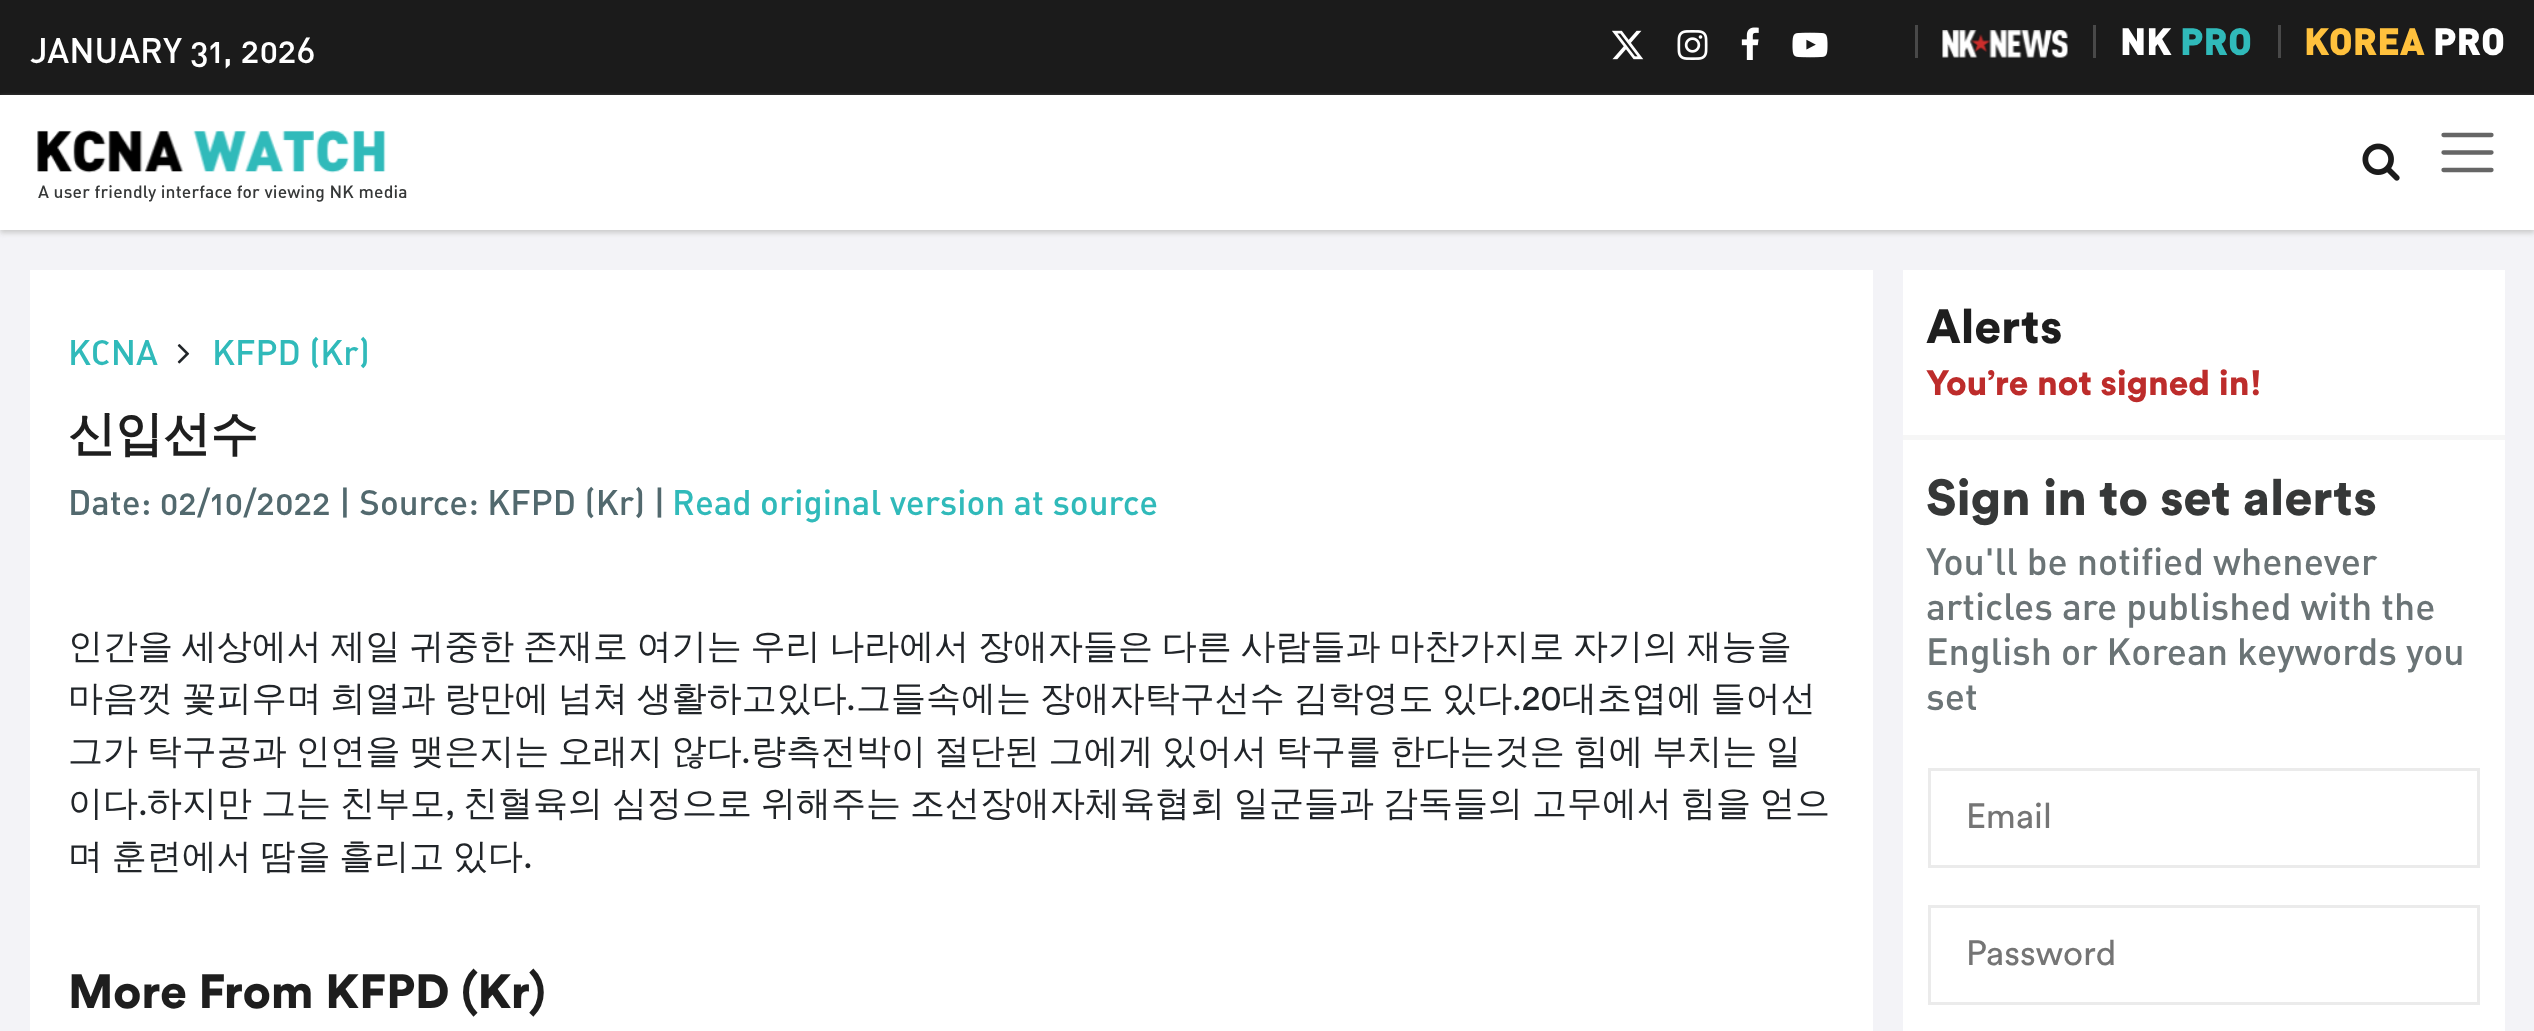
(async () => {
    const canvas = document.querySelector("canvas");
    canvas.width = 2534;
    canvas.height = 1031;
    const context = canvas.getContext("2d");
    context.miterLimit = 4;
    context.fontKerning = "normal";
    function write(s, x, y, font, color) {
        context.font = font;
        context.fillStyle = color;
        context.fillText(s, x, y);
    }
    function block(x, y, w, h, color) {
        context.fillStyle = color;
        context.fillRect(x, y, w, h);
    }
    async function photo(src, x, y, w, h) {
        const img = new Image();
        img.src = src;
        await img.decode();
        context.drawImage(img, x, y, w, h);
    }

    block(0, 0, 2534, 1031, "rgb(243, 243, 247)");
    block(0, 0, 2534, 95, "rgb(27, 27, 27)");
    write("JANUARY 31, 2026", 30, 63, "500 35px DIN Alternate", "rgb(255, 255, 255)");
    await photo("media/1.png", 1612, 30, 32, 30);
    await photo("media/2.png", 1677, 30, 31, 30);
    await photo("media/3.png", 1741, 27, 18, 33);
    await photo("media/4.png", 1792, 32, 36, 26);
    block(1915, 25, 3, 33, "rgb(73, 73, 73)");
    await photo("media/5.png", 1942, 30, 126, 28);
    block(2093, 25, 3, 33, "rgb(73, 73, 73)");
    write("NK", 2120, 55, "900 37.5px DIN", "rgb(255, 255, 255)");
    write("PRO", 2180, 55, "900 37.5px DIN", "rgb(48, 186, 186)");
    block(2278, 25, 3, 33, "rgb(73, 73, 73)");
    write("KOREA", 2304, 55, "900 37.5px DIN", "rgb(255, 193, 61)");
    write("PRO", 2433, 55, "900 37.5px DIN", "rgb(255, 255, 255)");
    context.fillStyle = "rgb(204, 204, 204)";
    context.filter = "blur(2.5px)";
    context.beginPath();
    context.rect(0, 98, 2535, 135);
    context.fill();
    context.filter = "none";
    block(0, 95, 2534, 135, "rgb(255, 255, 255)");
    await photo("media/6.png", 2362, 143, 38, 38);
    context.beginPath();
    context.moveTo(2443.5, 135);
    context.lineTo(2491.5, 135);
    context.moveTo(2443.5, 152.5);
    context.lineTo(2491.5, 152.5);
    context.moveTo(2443.5, 170);
    context.lineTo(2491.5, 170);
    context.strokeStyle = "rgb(102, 102, 102)";
    context.lineWidth = 4.3;
    context.lineCap = "round";
    context.stroke();
    await photo("media/7.png", 37, 130, 349, 43);
    context.letterSpacing = "0.2px";
    write("A user friendly interface for viewing NK media", 38, 198, "500 17.5px DIN Alternate", "rgb(54, 56, 56)");
    block(30, 270, 1843, 761, "rgb(255, 255, 255)");
    context.letterSpacing = "0px";
    write("KCNA", 68, 365, "500 35px DIN Alternate", "rgb(48, 186, 186)");
    await photo("media/8.png", 177, 344, 13, 20);
    write("KFPD (Kr)", 212, 365, "500 35px DIN Alternate", "rgb(48, 186, 186)");
    write("신입선수", 68, 450, "bold 47.5px WenQuanYi Zen Hei", "rgb(30, 30, 30)");
    write("Date: 02/10/2022 | Source: KFPD (Kr) |", 68, 515, "500 35px DIN Alternate", "rgb(82, 105, 110)");
    write("Read original version at source", 672, 515, "500 35px DIN Alternate", "rgb(48, 186, 186)");
    context.wordSpacing = "-1.75px";
    write("인간을 세상에서 제일 귀중한 존재로 여기는 우리 나라에서 장애자들은 다른 사람들과 마찬가지로 자기의 재능을", 68, 658, "500 35px WenQuanYi Zen Hei", "rgb(33, 37, 41)");
    write("마음껏 꽃피우며 희열과 랑만에 넘쳐 생활하고있다", 68, 710, "500 35px WenQuanYi Zen Hei", "rgb(33, 37, 41)");
    context.wordSpacing = "0px";
    write(".", 846, 710, "35px Circular", "rgb(33, 37, 41)");
    context.wordSpacing = "-1.75px";
    write("그들속에는 장애자탁구선수 김학영도 있다", 856, 710, "500 35px WenQuanYi Zen Hei", "rgb(33, 37, 41)");
    context.wordSpacing = "0px";
    write(".20", 1512, 710, "35px Circular", "rgb(33, 37, 41)");
    context.wordSpacing = "-1.75px";
    write("대초엽에 들어선", 1562, 710, "500 35px WenQuanYi Zen Hei", "rgb(33, 37, 41)");
    write("그가 탁구공과 인연을 맺은지는 오래지 않다", 68, 763, "500 35px WenQuanYi Zen Hei", "rgb(33, 37, 41)");
    context.wordSpacing = "0px";
    write(".", 741, 763, "35px Circular", "rgb(33, 37, 41)");
    context.wordSpacing = "-1.75px";
    write("량측전박이 절단된 그에게 있어서 탁구를 한다는것은 힘에 부치는 일", 751, 763, "500 35px WenQuanYi Zen Hei", "rgb(33, 37, 41)");
    context.wordSpacing = "0px";
    write("이다", 68, 815, "500 35px WenQuanYi Zen Hei", "rgb(33, 37, 41)");
    write(".", 138, 815, "35px Circular", "rgb(33, 37, 41)");
    context.wordSpacing = "-1.5px";
    write("하지만 그는 친부모", 147, 815, "500 35px WenQuanYi Zen Hei", "rgb(33, 37, 41)");
    context.wordSpacing = "0px";
    write(",", 445, 815, "35px Circular", "rgb(33, 37, 41)");
    context.wordSpacing = "-1.5px";
    write("친혈육의 심정으로 위해주는 조선장애자체육협회 일군들과 감독들의 고무에서 힘을 얻으", 463, 815, "500 35px WenQuanYi Zen Hei", "rgb(33, 37, 41)");
    context.wordSpacing = "-1.75px";
    write("며 훈련에서 땀을 흘리고 있다", 68, 868, "500 35px WenQuanYi Zen Hei", "rgb(33, 37, 41)");
    context.wordSpacing = "0px";
    write(".", 523, 868, "35px Circular", "rgb(33, 37, 41)");
    write("More From KFPD (Kr)", 68, 1008, "900 47.5px Circular", "rgb(30, 30, 30)");
    block(1903, 270, 602, 761, "rgb(255, 255, 255)");
    block(1903, 435, 602, 5, "rgb(246, 246, 246)");
    write("Alerts", 1926, 343, "900 47.5px Circular", "rgb(30, 30, 30)");
    write("You’re not signed in!", 1926, 395, "900 35px Circular", "rgb(189, 44, 43)");
    write("Sign in to set alerts", 1926, 515, "900 50px Circular", "rgb(54, 56, 56)");
    write("You'll be notified whenever", 1926, 575, "500 37.5px DIN Alternate", "rgb(107, 116, 118)");
    write("articles are published with the", 1926, 620, "500 37.5px DIN Alternate", "rgb(107, 116, 118)");
    write("English or Korean keywords you", 1926, 665, "500 37.5px DIN Alternate", "rgb(107, 116, 118)");
    write("set", 1926, 710, "500 37.5px DIN Alternate", "rgb(107, 116, 118)");
    context.strokeStyle = "rgb(235, 235, 235)";
    context.lineWidth = 3;
    context.strokeRect(1929.5, 769.5, 549, 97);
    write("Email", 1966, 828, "35px Circular", "rgb(117, 117, 117)");
    context.strokeRect(1929.5, 906.5, 549, 97);
    write("Password", 1966, 965, "35px Circular", "rgb(117, 117, 117)");
})();
